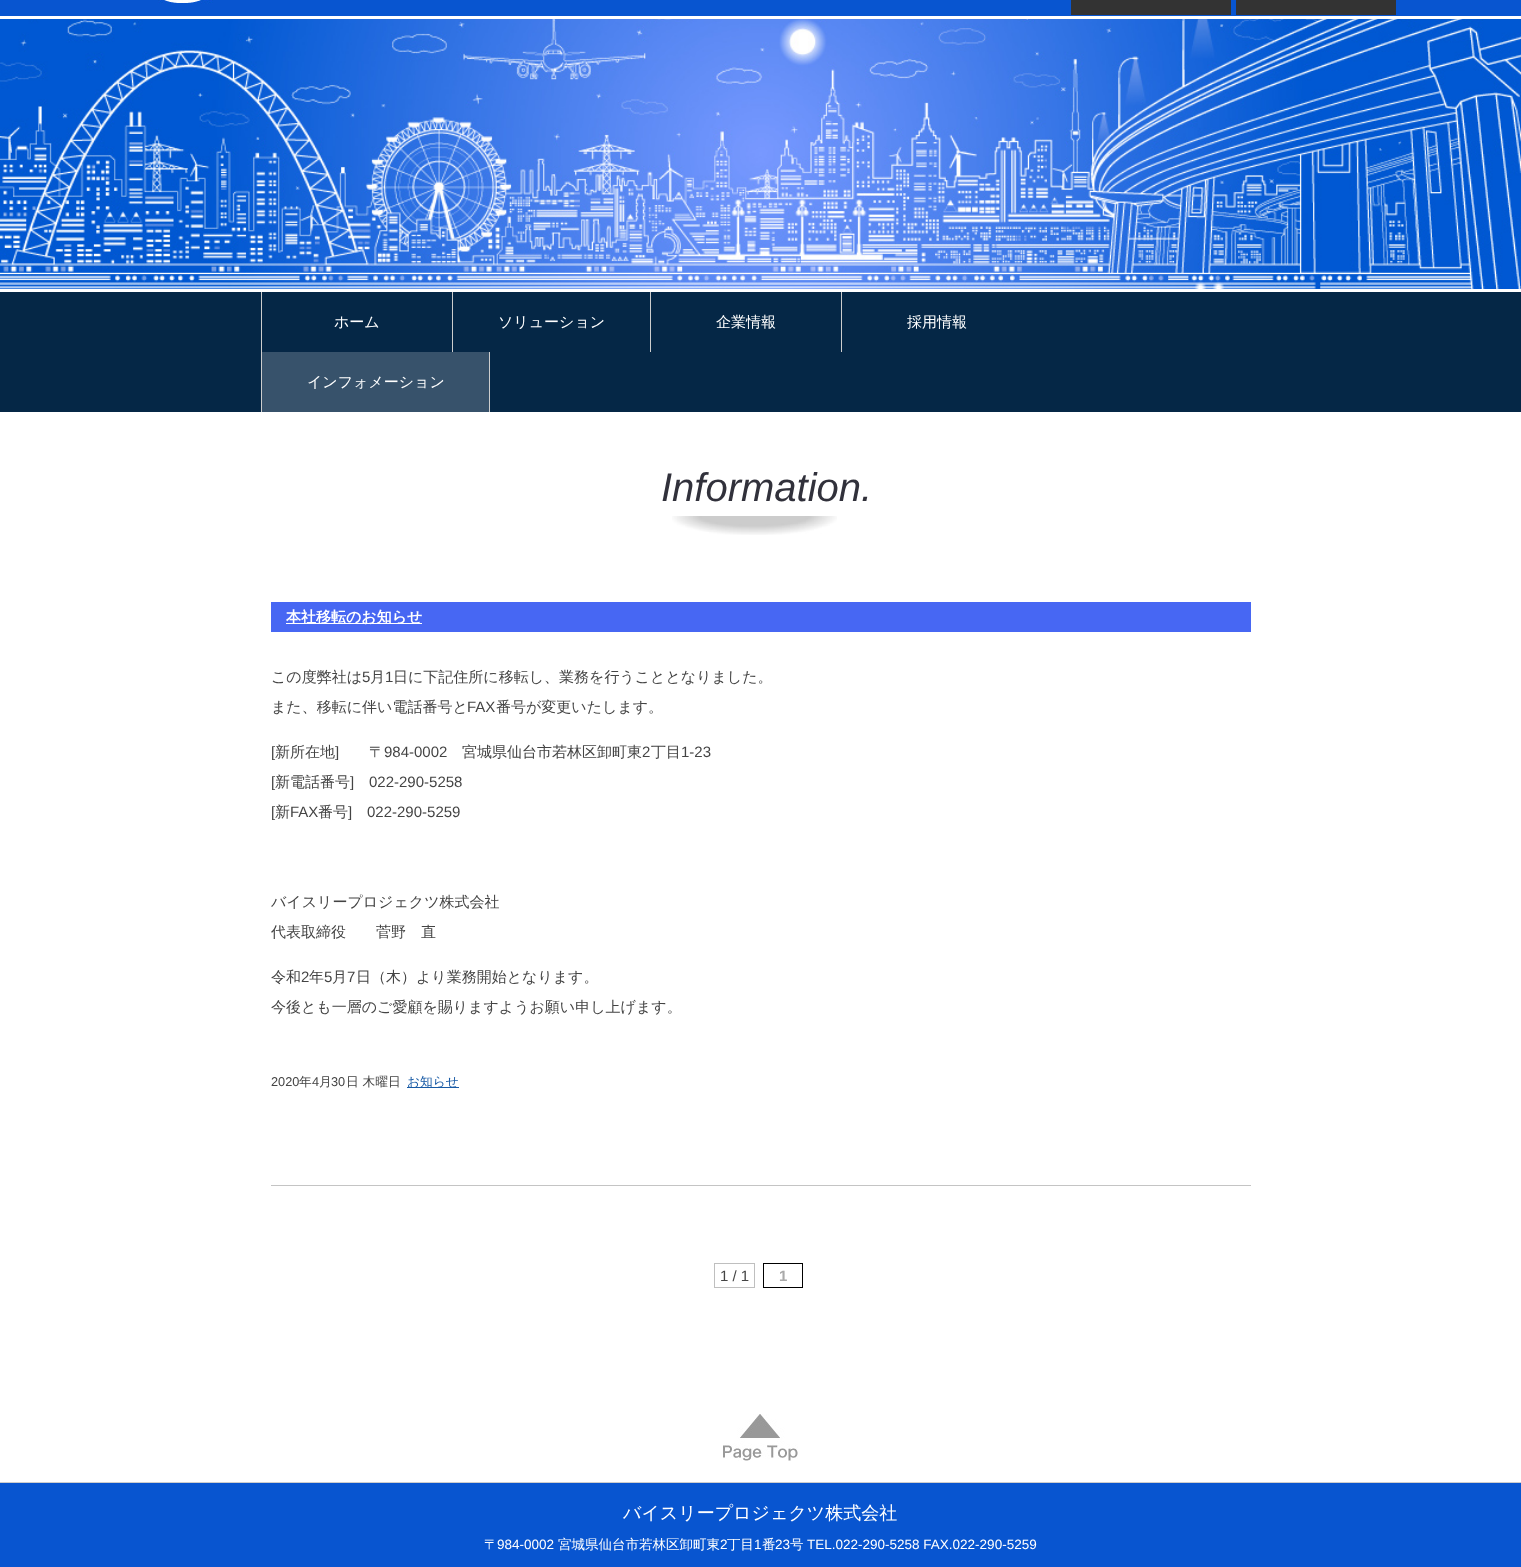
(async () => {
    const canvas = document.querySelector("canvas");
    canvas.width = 1521;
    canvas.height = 1567;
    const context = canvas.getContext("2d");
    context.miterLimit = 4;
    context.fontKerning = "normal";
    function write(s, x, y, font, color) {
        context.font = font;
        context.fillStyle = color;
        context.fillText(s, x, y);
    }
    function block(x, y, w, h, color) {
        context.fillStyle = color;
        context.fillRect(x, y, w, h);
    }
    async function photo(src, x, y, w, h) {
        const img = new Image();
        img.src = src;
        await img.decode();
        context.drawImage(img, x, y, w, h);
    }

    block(0, 0, 1521, 1567, "rgb(255, 255, 255)");
    block(0, 0, 1521, 16, "rgb(8, 85, 208)");
    await photo("media/1.png", 158, 0, 55, 4);
    block(1071, 0, 160, 15, "rgb(51, 51, 51)");
    block(1236, 0, 160, 15, "rgb(51, 51, 51)");
    await photo("media/2.png", 0, 19, 1521, 270);
    block(0, 292, 1521, 120, "rgb(5, 39, 70)");
    block(261, 292, 1, 120, "rgb(205, 205, 205)");
    write("ホーム", 334, 327, "500 15px WenQuanYi Zen Hei", "rgb(255, 255, 255)");
    block(452, 292, 1, 60, "rgb(205, 205, 205)");
    write("ソリューション", 498, 327, "500 15px WenQuanYi Zen Hei", "rgb(255, 255, 255)");
    block(650, 292, 1, 60, "rgb(205, 205, 205)");
    write("企業情報", 716, 327, "500 15px WenQuanYi Zen Hei", "rgb(255, 255, 255)");
    block(841, 292, 1, 60, "rgb(205, 205, 205)");
    write("採用情報", 907, 327, "500 15px WenQuanYi Zen Hei", "rgb(255, 255, 255)");
    block(262, 352, 227, 60, "rgb(55, 82, 107)");
    block(489, 352, 1, 60, "rgb(205, 205, 205)");
    write("インフォメーション", 307, 387, "500 15px WenQuanYi Zen Hei", "rgb(255, 255, 255)");
    await photo("media/3.png", 672, 516, 165, 19);
    write("Information.", 661, 501, "italic 40px Liberation Sans", "rgb(49, 49, 59)");
    block(271, 602, 980, 30, "rgb(71, 103, 243)");
    block(286, 623, 136, 1, "rgb(255, 255, 255)");
    write("本社移転のお知らせ", 286, 622, "bold 15px WenQuanYi Zen Hei", "rgb(255, 255, 255)");
    write("この度弊社は", 271, 682, "500 15px WenQuanYi Zen Hei", "rgb(68, 68, 68)");
    write("5", 362, 682, "15px Liberation Sans", "rgb(68, 68, 68)");
    write("月", 370, 682, "500 15px WenQuanYi Zen Hei", "rgb(68, 68, 68)");
    write("1", 385, 682, "15px Liberation Sans", "rgb(68, 68, 68)");
    write("日に下記住所に移転し、業務を行うこととなりました。", 393, 682, "500 15px WenQuanYi Zen Hei", "rgb(68, 68, 68)");
    write("また、移転に伴い電話番号と", 271, 712, "500 15px WenQuanYi Zen Hei", "rgb(68, 68, 68)");
    write("FAX", 467, 712, "15px Liberation Sans", "rgb(68, 68, 68)");
    write("番号が変更いたします。", 496, 712, "500 15px WenQuanYi Zen Hei", "rgb(68, 68, 68)");
    write("[", 271, 757, "15px Liberation Sans", "rgb(68, 68, 68)");
    write("新所在地", 275, 757, "500 15px WenQuanYi Zen Hei", "rgb(68, 68, 68)");
    write("]", 335, 757, "15px Liberation Sans", "rgb(68, 68, 68)");
    write("〒", 369, 757, "500 15px WenQuanYi Zen Hei", "rgb(68, 68, 68)");
    write("984-0002", 384, 757, "15px Liberation Sans", "rgb(68, 68, 68)");
    write("宮城県仙台市若林区卸町東", 462, 757, "500 15px WenQuanYi Zen Hei", "rgb(68, 68, 68)");
    write("2", 642, 757, "15px Liberation Sans", "rgb(68, 68, 68)");
    write("丁目", 651, 757, "500 15px WenQuanYi Zen Hei", "rgb(68, 68, 68)");
    write("1-23", 681, 757, "15px Liberation Sans", "rgb(68, 68, 68)");
    write("[", 271, 787, "15px Liberation Sans", "rgb(68, 68, 68)");
    write("新電話番号", 275, 787, "500 15px WenQuanYi Zen Hei", "rgb(68, 68, 68)");
    write("]", 350, 787, "15px Liberation Sans", "rgb(68, 68, 68)");
    write("022-290-5258", 369, 787, "15px Liberation Sans", "rgb(68, 68, 68)");
    write("[", 271, 817, "15px Liberation Sans", "rgb(68, 68, 68)");
    write("新", 275, 817, "500 15px WenQuanYi Zen Hei", "rgb(68, 68, 68)");
    write("FAX", 290, 817, "15px Liberation Sans", "rgb(68, 68, 68)");
    write("番号", 318, 817, "500 15px WenQuanYi Zen Hei", "rgb(68, 68, 68)");
    write("]", 348, 817, "15px Liberation Sans", "rgb(68, 68, 68)");
    write("022-290-5259", 367, 817, "15px Liberation Sans", "rgb(68, 68, 68)");
    write("バイスリープロジェクツ株式会社", 271, 907, "500 15px WenQuanYi Zen Hei", "rgb(68, 68, 68)");
    write("代表取締役　　菅野　直", 271, 937, "500 15px WenQuanYi Zen Hei", "rgb(68, 68, 68)");
    write("令和", 271, 982, "500 15px WenQuanYi Zen Hei", "rgb(68, 68, 68)");
    write("2", 301, 982, "15px Liberation Sans", "rgb(68, 68, 68)");
    write("年", 309, 982, "500 15px WenQuanYi Zen Hei", "rgb(68, 68, 68)");
    write("5", 324, 982, "15px Liberation Sans", "rgb(68, 68, 68)");
    write("月", 332, 982, "500 15px WenQuanYi Zen Hei", "rgb(68, 68, 68)");
    write("7", 347, 982, "15px Liberation Sans", "rgb(68, 68, 68)");
    write("日（木）より業務開始となります。", 356, 982, "500 15px WenQuanYi Zen Hei", "rgb(68, 68, 68)");
    write("今後とも一層のご愛顧を賜りますようお願い申し上げます。", 271, 1012, "500 15px WenQuanYi Zen Hei", "rgb(68, 68, 68)");
    write("2020", 271, 1086, "12.75px Liberation Sans", "rgb(68, 68, 68)");
    write("年", 299, 1086, "500 12.75px WenQuanYi Zen Hei", "rgb(68, 68, 68)");
    write("4", 312, 1086, "12.75px Liberation Sans", "rgb(68, 68, 68)");
    write("月", 319, 1086, "500 12.75px WenQuanYi Zen Hei", "rgb(68, 68, 68)");
    write("30", 331, 1086, "12.75px Liberation Sans", "rgb(68, 68, 68)");
    write("日 木曜日", 346, 1086, "500 12.75px WenQuanYi Zen Hei", "rgb(68, 68, 68)");
    block(407, 1087, 52, 1, "rgb(24, 90, 165)");
    write("お知らせ", 407, 1086, "500 12.75px WenQuanYi Zen Hei", "rgb(24, 90, 165)");
    block(271, 1185, 980, 1, "rgb(196, 196, 196)");
    context.strokeStyle = "rgb(191, 191, 191)";
    context.strokeRect(714.5, 1263.5, 40, 24);
    write("1 / 1", 720, 1281, "15px Liberation Sans", "rgb(68, 68, 68)");
    context.strokeStyle = "rgb(0, 0, 0)";
    context.strokeRect(763.5, 1263.5, 39, 24);
    write("1", 779, 1281, "bold 15px Liberation Sans", "rgb(170, 170, 170)");
    await photo("media/4.png", 723, 1414, 75, 47);
    block(0, 1483, 1521, 84, "rgb(8, 85, 208)");
    block(0, 1482, 1521, 1, "rgb(205, 205, 205)");
    write("バイスリープロジェクツ株式会社", 623, 1519, "500 18px WenQuanYi Zen Hei", "rgb(255, 255, 255)");
    write("〒", 484, 1549, "500 13.5px WenQuanYi Zen Hei", "rgb(255, 255, 255)");
    write("984-0002", 497, 1549, "13.5px Liberation Sans", "rgb(255, 255, 255)");
    write("宮城県仙台市若林区卸町東", 558, 1549, "500 13.5px WenQuanYi Zen Hei", "rgb(255, 255, 255)");
    write("2", 720, 1549, "13.5px Liberation Sans", "rgb(255, 255, 255)");
    write("丁目", 727, 1549, "500 13.5px WenQuanYi Zen Hei", "rgb(255, 255, 255)");
    write("1", 754, 1549, "13.5px Liberation Sans", "rgb(255, 255, 255)");
    write("番", 762, 1549, "500 13.5px WenQuanYi Zen Hei", "rgb(255, 255, 255)");
    write("23", 775, 1549, "13.5px Liberation Sans", "rgb(255, 255, 255)");
    write("号", 790, 1549, "500 13.5px WenQuanYi Zen Hei", "rgb(255, 255, 255)");
    write("TEL.022-290-5258 FAX.022-290-5259", 807, 1549, "13.5px Liberation Sans", "rgb(255, 255, 255)");
})();
